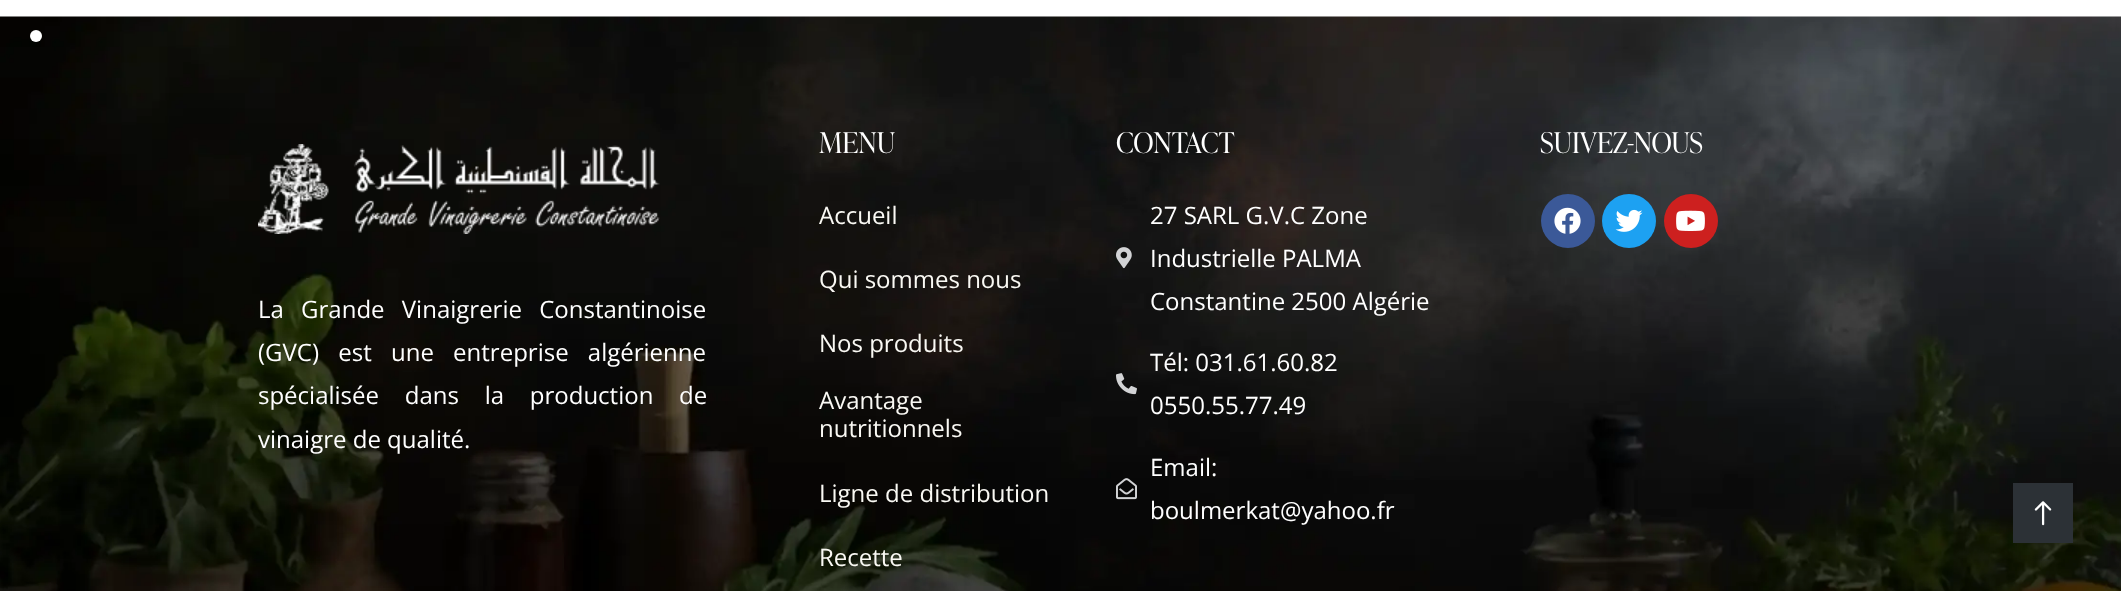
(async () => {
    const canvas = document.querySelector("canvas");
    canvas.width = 2121;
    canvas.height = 591;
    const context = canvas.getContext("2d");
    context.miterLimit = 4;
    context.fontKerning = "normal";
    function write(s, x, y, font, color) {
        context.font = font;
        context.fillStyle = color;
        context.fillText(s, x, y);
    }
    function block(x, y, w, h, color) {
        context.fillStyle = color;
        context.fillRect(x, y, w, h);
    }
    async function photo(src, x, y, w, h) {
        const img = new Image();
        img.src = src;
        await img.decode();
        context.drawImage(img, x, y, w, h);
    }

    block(0, 0, 2121, 591, "rgb(255, 255, 255)");
    await photo("media/1.png", 0, 16, 2121, 575);
    context.beginPath();
    context.arc(36, 36, 6, 0, Math.PI * 2);
    context.fill();
    await photo("media/2.png", 258, 144, 402, 90);
    context.wordSpacing = "11px";
    write("La Grande Vinaigrerie Constantinoise", 258, 318, "24px Open Sans", "rgb(255, 255, 255)");
    context.wordSpacing = "13px";
    write("(GVC) est une entreprise algérienne", 258, 361, "24px Open Sans", "rgb(255, 255, 255)");
    context.wordSpacing = "19.5px";
    write("spécialisée dans la production de", 258, 404, "24px Open Sans", "rgb(255, 255, 255)");
    context.wordSpacing = "0px";
    write("vinaigre de qualité.", 258, 448, "24px Open Sans", "rgb(255, 255, 255)");
    write("MENU", 819, 153, "300 28.5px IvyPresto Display", "rgb(255, 255, 255)");
    write("Accueil", 819, 224, "24px Open Sans", "rgb(250, 249, 244)");
    write("Qui sommes nous", 819, 288, "24px Open Sans", "rgb(250, 249, 244)");
    write("Nos produits", 819, 352, "24px Open Sans", "rgb(250, 249, 244)");
    write("Avantage", 819, 409, "24px Open Sans", "rgb(250, 249, 244)");
    write("nutritionnels", 819, 437, "24px Open Sans", "rgb(250, 249, 244)");
    write("Ligne de distribution", 819, 502, "24px Open Sans", "rgb(250, 249, 244)");
    write("Recette", 819, 566, "24px Open Sans", "rgb(250, 249, 244)");
    write("CONTACT", 1116, 153, "300 28.5px IvyPresto Display", "rgb(255, 255, 255)");
    await photo("media/3.png", 1116, 247, 16, 22);
    write("27 SARL G.V.C Zone", 1150, 224, "24px Open Sans", "rgb(255, 255, 255)");
    write("Industrielle PALMA", 1150, 267, "24px Open Sans", "rgb(255, 255, 255)");
    write("Constantine 2500 Algérie", 1150, 310, "24px Open Sans", "rgb(255, 255, 255)");
    await photo("media/4.png", 1116, 373, 21, 22);
    write("Tél: 031.61.60.82", 1150, 371, "24px Open Sans", "rgb(255, 255, 255)");
    write("0550.55.77.49", 1150, 414, "24px Open Sans", "rgb(255, 255, 255)");
    await photo("media/5.png", 1116, 478, 21, 22);
    write("Email:", 1150, 476, "24px Open Sans", "rgb(255, 255, 255)");
    write("boulmerkat@yahoo.fr", 1150, 519, "24px Open Sans", "rgb(255, 255, 255)");
    write("SUIVEZ-NOUS", 1540, 153, "300 28.5px IvyPresto Display", "rgb(255, 255, 255)");
    context.fillStyle = "rgb(59, 89, 152)";
    context.beginPath();
    context.arc(1568, 221, 27, 0, Math.PI * 2);
    context.fill();
    await photo("media/6.png", 1554, 207, 27, 27);
    context.fillStyle = "rgb(29, 161, 242)";
    context.beginPath();
    context.arc(1629, 221, 27, 0, Math.PI * 2);
    context.fill();
    await photo("media/7.png", 1615, 209, 28, 23);
    context.fillStyle = "rgb(205, 32, 31)";
    context.beginPath();
    context.arc(1691, 221, 27, 0, Math.PI * 2);
    context.fill();
    await photo("media/8.png", 1676, 210, 29, 21);
    block(2013, 483, 60, 60, "rgb(44, 49, 54)");
    await photo("media/9.png", 2034, 501, 18, 25);
})();
